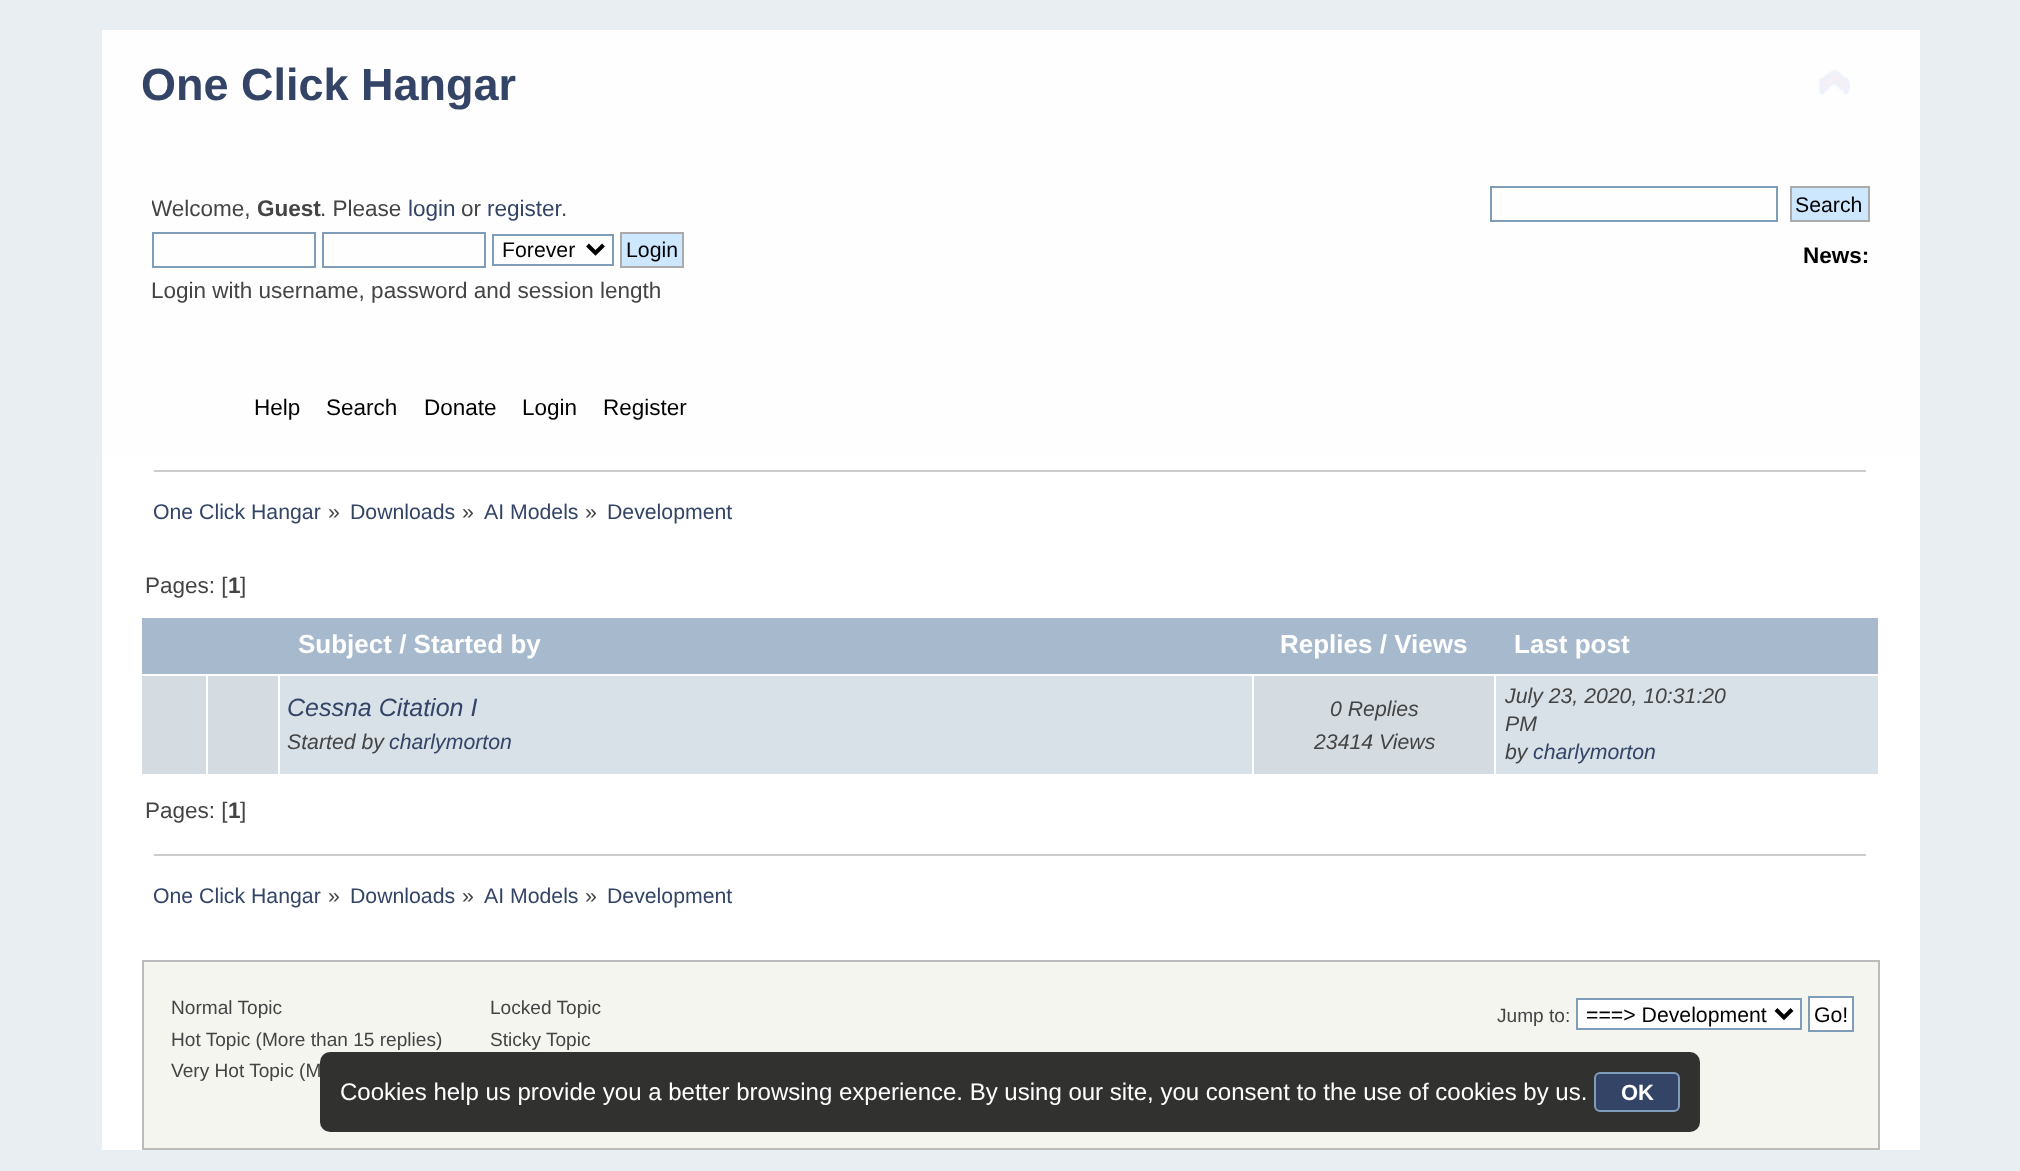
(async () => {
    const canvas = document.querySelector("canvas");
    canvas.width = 2020;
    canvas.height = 1171;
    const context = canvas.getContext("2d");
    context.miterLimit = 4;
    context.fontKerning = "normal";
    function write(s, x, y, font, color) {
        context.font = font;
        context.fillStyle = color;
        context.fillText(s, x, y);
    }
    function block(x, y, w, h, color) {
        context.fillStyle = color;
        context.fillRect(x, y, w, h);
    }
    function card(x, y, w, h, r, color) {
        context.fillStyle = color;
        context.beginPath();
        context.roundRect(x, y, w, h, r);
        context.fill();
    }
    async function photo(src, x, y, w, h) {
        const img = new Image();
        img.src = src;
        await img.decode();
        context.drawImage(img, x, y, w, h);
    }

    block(0, 0, 2020, 1171, "rgb(233, 238, 242)");
    block(102, 30, 1818, 428, "rgb(254, 254, 254)");
    write("One Click Hangar", 141, 100, "bold 45px Liberation Sans", "rgb(51, 68, 102)");
    await photo("media/1.png", 1818, 70, 32, 25);
    context.save();
    context.beginPath();
    context.rect(152, 186, 858, 126);
    context.clip();
    write("Welcome,", 151, 216, "22.5px Liberation Sans", "rgb(68, 68, 68)");
    context.restore();
    write("Guest", 257, 216, "bold 22.5px Liberation Sans", "rgb(68, 68, 68)");
    write(". Please", 320, 216, "22.5px Liberation Sans", "rgb(68, 68, 68)");
    write("login", 408, 216, "22.5px Liberation Sans", "rgb(51, 68, 102)");
    write("or", 461, 216, "22.5px Liberation Sans", "rgb(68, 68, 68)");
    write("register", 487, 216, "22.5px Liberation Sans", "rgb(51, 68, 102)");
    write(".", 561, 216, "22.5px Liberation Sans", "rgb(68, 68, 68)");
    context.strokeStyle = "rgb(127, 157, 185)";
    context.lineWidth = 2;
    context.strokeRect(153, 233, 162, 34);
    context.strokeRect(323, 233, 162, 34);
    context.strokeRect(493, 235, 120, 30);
    context.beginPath();
    context.moveTo(587.5, 245);
    context.lineTo(595.5, 253);
    context.lineTo(603.5, 245);
    context.strokeStyle = "rgb(0, 0, 0)";
    context.lineWidth = 4;
    context.stroke();
    write("Forever", 502, 257, "21.25px Liberation Sans", "rgb(0, 0, 0)");
    context.fillStyle = "rgb(205, 231, 255)";
    context.beginPath();
    context.rect(621, 233, 62, 34);
    context.fill();
    context.strokeStyle = "rgb(170, 170, 170)";
    context.lineWidth = 2;
    context.stroke();
    write("Login", 626, 257, "21.25px Liberation Sans", "rgb(0, 0, 0)");
    write("Login with username, password and session length", 151, 298, "22.5px Liberation Sans", "rgb(68, 68, 68)");
    context.strokeStyle = "rgb(127, 157, 185)";
    context.strokeRect(1491, 187, 286, 34);
    context.fillStyle = "rgb(205, 231, 255)";
    context.beginPath();
    context.rect(1791, 187, 78, 34);
    context.fill();
    context.strokeStyle = "rgb(170, 170, 170)";
    context.stroke();
    write("Search", 1795, 212, "21.25px Liberation Sans", "rgb(0, 0, 0)");
    write("News:", 1803, 263, "bold 22.5px Liberation Sans", "rgb(0, 0, 0)");
    write("Help", 254, 415, "22.5px Liberation Sans", "rgb(0, 0, 0)");
    write("Search", 326, 415, "22.5px Liberation Sans", "rgb(0, 0, 0)");
    write("Donate", 424, 415, "22.5px Liberation Sans", "rgb(0, 0, 0)");
    write("Login", 522, 415, "22.5px Liberation Sans", "rgb(0, 0, 0)");
    write("Register", 603, 415, "22.5px Liberation Sans", "rgb(0, 0, 0)");
    block(102, 458, 1818, 692, "rgb(255, 255, 255)");
    block(154, 470, 1712, 2, "rgb(204, 204, 204)");
    write("One Click Hangar", 153, 519, "21.25px Liberation Sans", "rgb(51, 68, 102)");
    write("»", 328, 519, "21.25px Liberation Sans", "rgb(68, 68, 68)");
    write("Downloads", 350, 519, "21.25px Liberation Sans", "rgb(51, 68, 102)");
    write("»", 462, 519, "21.25px Liberation Sans", "rgb(68, 68, 68)");
    write("AI Models", 484, 519, "21.25px Liberation Sans", "rgb(51, 68, 102)");
    write("»", 585, 519, "21.25px Liberation Sans", "rgb(68, 68, 68)");
    write("Development", 607, 519, "21.25px Liberation Sans", "rgb(51, 68, 102)");
    write("Pages: [", 145, 593, "22.5px Liberation Sans", "rgb(68, 68, 68)");
    write("1", 228, 593, "bold 22.5px Liberation Sans", "rgb(68, 68, 68)");
    write("]", 240, 593, "22.5px Liberation Sans", "rgb(68, 68, 68)");
    block(142, 618, 1736, 56, "rgb(167, 185, 205)");
    write("Subject / Started by", 298, 653, "bold 26px Liberation Sans", "rgb(255, 255, 255)");
    write("Replies / Views", 1280, 653, "bold 26px Liberation Sans", "rgb(255, 255, 255)");
    write("Last post", 1514, 653, "bold 26px Liberation Sans", "rgb(255, 255, 255)");
    block(142, 676, 64, 98, "rgb(212, 220, 226)");
    block(208, 676, 70, 98, "rgb(212, 220, 226)");
    block(280, 676, 972, 98, "rgb(216, 225, 231)");
    write("Cessna Citation I", 287, 716, "italic 25px Liberation Sans", "rgb(51, 68, 102)");
    write("Started by", 287, 749, "italic 21.25px Liberation Sans", "rgb(68, 68, 68)");
    write("charlymorton", 389, 749, "italic 21.25px Liberation Sans", "rgb(51, 68, 102)");
    block(1254, 676, 240, 98, "rgb(212, 220, 226)");
    write("0 Replies", 1330, 716, "italic 21.25px Liberation Sans", "rgb(68, 68, 68)");
    write("23414 Views", 1314, 749, "italic 21.25px Liberation Sans", "rgb(68, 68, 68)");
    block(1496, 676, 382, 98, "rgb(216, 225, 231)");
    write("July 23, 2020, 10:31:20", 1505, 703, "italic 21.25px Liberation Sans", "rgb(68, 68, 68)");
    write("PM", 1505, 731, "italic 21.25px Liberation Sans", "rgb(68, 68, 68)");
    write("by", 1505, 759, "italic 21.25px Liberation Sans", "rgb(68, 68, 68)");
    write("charlymorton", 1533, 759, "italic 21.25px Liberation Sans", "rgb(51, 68, 102)");
    write("Pages: [", 145, 818, "22.5px Liberation Sans", "rgb(68, 68, 68)");
    write("1", 228, 818, "bold 22.5px Liberation Sans", "rgb(68, 68, 68)");
    write("]", 240, 818, "22.5px Liberation Sans", "rgb(68, 68, 68)");
    block(154, 854, 1712, 2, "rgb(204, 204, 204)");
    write("One Click Hangar", 153, 903, "21.25px Liberation Sans", "rgb(51, 68, 102)");
    write("»", 328, 903, "21.25px Liberation Sans", "rgb(68, 68, 68)");
    write("Downloads", 350, 903, "21.25px Liberation Sans", "rgb(51, 68, 102)");
    write("»", 462, 903, "21.25px Liberation Sans", "rgb(68, 68, 68)");
    write("AI Models", 484, 903, "21.25px Liberation Sans", "rgb(51, 68, 102)");
    write("»", 585, 903, "21.25px Liberation Sans", "rgb(68, 68, 68)");
    write("Development", 607, 903, "21.25px Liberation Sans", "rgb(51, 68, 102)");
    context.fillStyle = "rgb(245, 245, 240)";
    context.beginPath();
    context.rect(143, 961, 1736, 188);
    context.fill();
    context.strokeStyle = "rgb(187, 187, 187)";
    context.stroke();
    write("Normal Topic", 171, 1014, "19.1px Liberation Sans", "rgb(68, 68, 68)");
    write("Hot Topic (More than 15 replies)", 171, 1046, "19.1px Liberation Sans", "rgb(68, 68, 68)");
    write("Very Hot Topic (M", 171, 1077, "19.1px Liberation Sans", "rgb(68, 68, 68)");
    write("Locked Topic", 490, 1014, "19.1px Liberation Sans", "rgb(68, 68, 68)");
    write("Sticky Topic", 490, 1046, "19.1px Liberation Sans", "rgb(68, 68, 68)");
    write("Jump to:", 1497, 1022, "19.1px Liberation Sans", "rgb(68, 68, 68)");
    context.fillStyle = "rgb(255, 255, 255)";
    context.beginPath();
    context.rect(1577, 999, 224, 30);
    context.fill();
    context.strokeStyle = "rgb(127, 157, 185)";
    context.stroke();
    context.beginPath();
    context.moveTo(1776, 1009.5);
    context.lineTo(1784, 1017.5);
    context.lineTo(1792, 1009.5);
    context.strokeStyle = "rgb(0, 0, 0)";
    context.lineWidth = 4;
    context.stroke();
    write("===> Development", 1586, 1022, "21.25px Liberation Sans", "rgb(0, 0, 0)");
    context.fillStyle = "rgb(255, 255, 255)";
    context.beginPath();
    context.rect(1809, 997, 44, 34);
    context.fill();
    context.strokeStyle = "rgb(127, 157, 185)";
    context.lineWidth = 2;
    context.stroke();
    write("Go!", 1814, 1022, "21.25px Liberation Sans", "rgb(0, 0, 0)");
    card(320, 1052, 1380, 80, 10, "rgba(0, 0, 0, 0.8)");
    write("Cookies help us provide you a better browsing experience. By using our site, you consent to the use of cookies by us.", 340, 1100, "24px Liberation Sans", "rgb(255, 255, 255)");
    context.fillStyle = "rgb(51, 68, 102)";
    context.beginPath();
    context.roundRect(1595, 1073, 84, 38, 5);
    context.fill();
    context.stroke();
    write("OK", 1621, 1100, "bold 22px Liberation Sans", "rgb(255, 255, 255)");
})();
